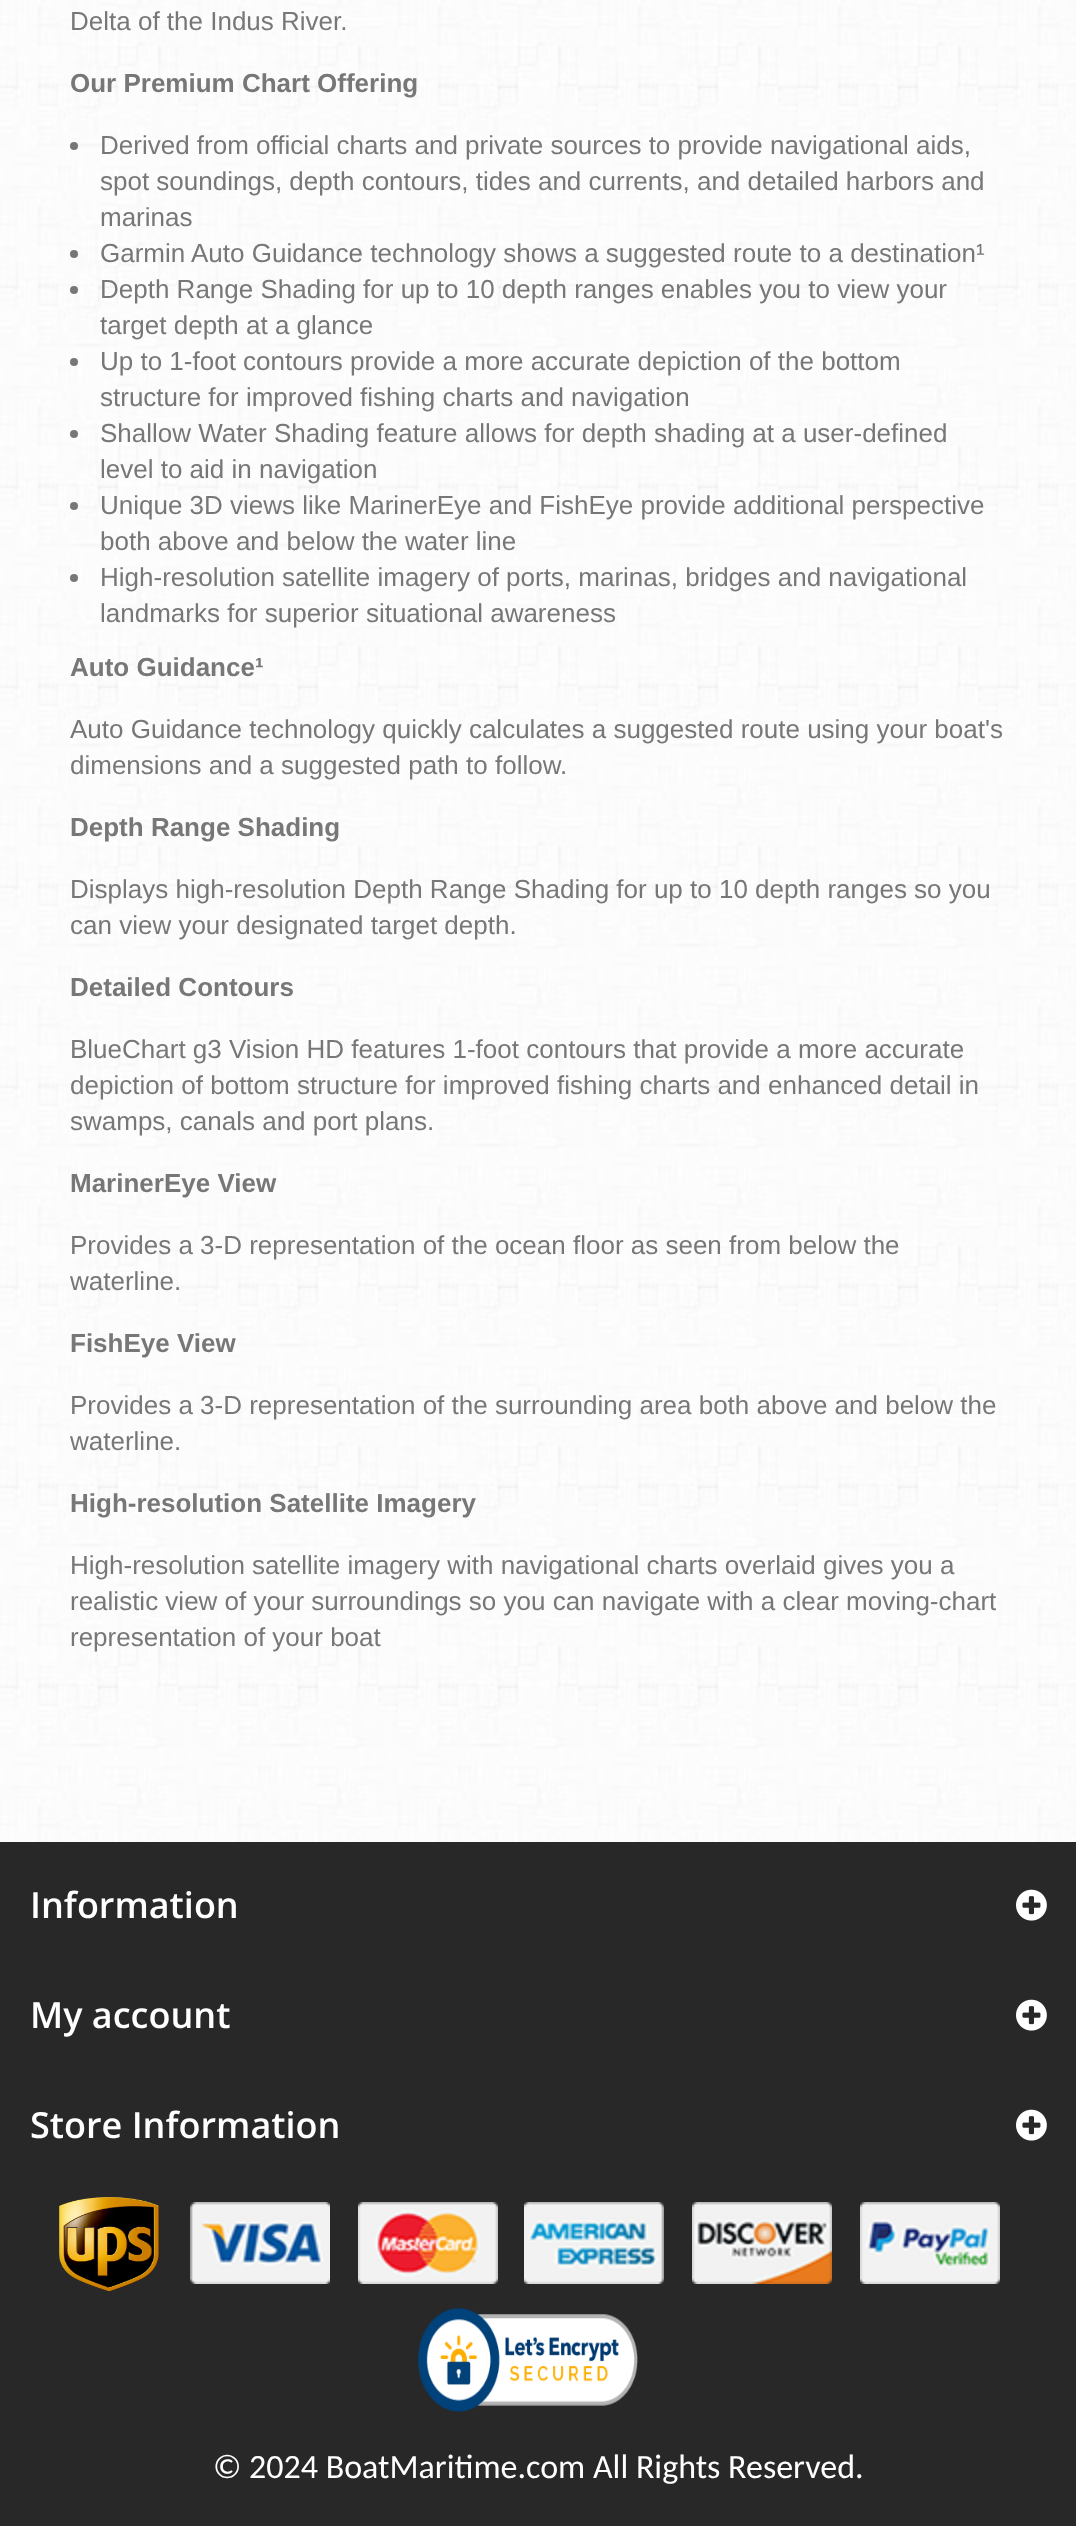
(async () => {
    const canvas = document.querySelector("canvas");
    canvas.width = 1076;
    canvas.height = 2526;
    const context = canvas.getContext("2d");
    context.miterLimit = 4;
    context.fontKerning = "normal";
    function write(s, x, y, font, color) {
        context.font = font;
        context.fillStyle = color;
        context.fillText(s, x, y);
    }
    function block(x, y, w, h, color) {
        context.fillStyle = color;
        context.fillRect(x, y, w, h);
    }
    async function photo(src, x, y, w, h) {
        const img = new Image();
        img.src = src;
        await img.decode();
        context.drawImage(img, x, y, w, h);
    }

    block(0, 0, 1076, 2526, "rgb(40, 40, 40)");
    await photo("media/1.png", 0, 0, 1076, 1842);
    write("Delta of the Indus River.", 70, 30, "26px Liberation Sans", "rgb(119, 119, 119)");
    write("Our Premium Chart Offering", 70, 92, "bold 26px Liberation Sans", "rgb(119, 119, 119)");
    context.beginPath();
    context.arc(74, 146, 4, 0, Math.PI * 2);
    context.fill();
    write("Derived from official charts and private sources to provide navigational aids,", 100, 154, "26px Liberation Sans", "rgb(119, 119, 119)");
    write("spot soundings, depth contours, tides and currents, and detailed harbors and", 100, 190, "26px Liberation Sans", "rgb(119, 119, 119)");
    write("marinas", 100, 226, "26px Liberation Sans", "rgb(119, 119, 119)");
    context.beginPath();
    context.arc(74, 254, 4, 0, Math.PI * 2);
    context.fill();
    write("Garmin Auto Guidance technology shows a suggested route to a destination¹", 100, 262, "26px Liberation Sans", "rgb(119, 119, 119)");
    context.beginPath();
    context.arc(74, 290, 4, 0, Math.PI * 2);
    context.fill();
    write("Depth Range Shading for up to 10 depth ranges enables you to view your", 100, 298, "26px Liberation Sans", "rgb(119, 119, 119)");
    write("target depth at a glance", 100, 334, "26px Liberation Sans", "rgb(119, 119, 119)");
    context.beginPath();
    context.arc(74, 362, 4, 0, Math.PI * 2);
    context.fill();
    write("Up to 1-foot contours provide a more accurate depiction of the bottom", 100, 370, "26px Liberation Sans", "rgb(119, 119, 119)");
    write("structure for improved fishing charts and navigation", 100, 406, "26px Liberation Sans", "rgb(119, 119, 119)");
    context.beginPath();
    context.arc(74, 434, 4, 0, Math.PI * 2);
    context.fill();
    write("Shallow Water Shading feature allows for depth shading at a user-defined", 100, 442, "26px Liberation Sans", "rgb(119, 119, 119)");
    write("level to aid in navigation", 100, 478, "26px Liberation Sans", "rgb(119, 119, 119)");
    context.beginPath();
    context.arc(74, 506, 4, 0, Math.PI * 2);
    context.fill();
    write("Unique 3D views like MarinerEye and FishEye provide additional perspective", 100, 514, "26px Liberation Sans", "rgb(119, 119, 119)");
    write("both above and below the water line", 100, 550, "26px Liberation Sans", "rgb(119, 119, 119)");
    context.beginPath();
    context.arc(74, 578, 4, 0, Math.PI * 2);
    context.fill();
    write("High-resolution satellite imagery of ports, marinas, bridges and navigational", 100, 586, "26px Liberation Sans", "rgb(119, 119, 119)");
    write("landmarks for superior situational awareness", 100, 622, "26px Liberation Sans", "rgb(119, 119, 119)");
    write("Auto Guidance¹", 70, 676, "bold 26px Liberation Sans", "rgb(119, 119, 119)");
    write("Auto Guidance technology quickly calculates a suggested route using your boat's", 70, 738, "26px Liberation Sans", "rgb(119, 119, 119)");
    write("dimensions and a suggested path to follow.", 70, 774, "26px Liberation Sans", "rgb(119, 119, 119)");
    write("Depth Range Shading", 70, 836, "bold 26px Liberation Sans", "rgb(119, 119, 119)");
    write("Displays high-resolution Depth Range Shading for up to 10 depth ranges so you", 70, 898, "26px Liberation Sans", "rgb(119, 119, 119)");
    write("can view your designated target depth.", 70, 934, "26px Liberation Sans", "rgb(119, 119, 119)");
    write("Detailed Contours", 70, 996, "bold 26px Liberation Sans", "rgb(119, 119, 119)");
    write("BlueChart g3 Vision HD features 1-foot contours that provide a more accurate", 70, 1058, "26px Liberation Sans", "rgb(119, 119, 119)");
    write("depiction of bottom structure for improved fishing charts and enhanced detail in", 70, 1094, "26px Liberation Sans", "rgb(119, 119, 119)");
    write("swamps, canals and port plans.", 70, 1130, "26px Liberation Sans", "rgb(119, 119, 119)");
    write("MarinerEye View", 70, 1192, "bold 26px Liberation Sans", "rgb(119, 119, 119)");
    write("Provides a 3-D representation of the ocean floor as seen from below the", 70, 1254, "26px Liberation Sans", "rgb(119, 119, 119)");
    write("waterline.", 70, 1290, "26px Liberation Sans", "rgb(119, 119, 119)");
    write("FishEye View", 70, 1352, "bold 26px Liberation Sans", "rgb(119, 119, 119)");
    write("Provides a 3-D representation of the surrounding area both above and below the", 70, 1414, "26px Liberation Sans", "rgb(119, 119, 119)");
    write("waterline.", 70, 1450, "26px Liberation Sans", "rgb(119, 119, 119)");
    write("High-resolution Satellite Imagery", 70, 1512, "bold 26px Liberation Sans", "rgb(119, 119, 119)");
    write("High-resolution satellite imagery with navigational charts overlaid gives you a", 70, 1574, "26px Liberation Sans", "rgb(119, 119, 119)");
    write("realistic view of your surroundings so you can navigate with a clear moving-chart", 70, 1610, "26px Liberation Sans", "rgb(119, 119, 119)");
    write("representation of your boat", 70, 1646, "26px Liberation Sans", "rgb(119, 119, 119)");
    write("Information", 30, 1918, "600 36px Open Sans", "rgb(255, 255, 255)");
    await photo("media/2.png", 1016, 1889, 31, 32);
    write("My account", 30, 2028, "600 36px Open Sans", "rgb(255, 255, 255)");
    await photo("media/2.png", 1016, 1999, 31, 32);
    write("Store Information", 30, 2138, "600 36px Open Sans", "rgb(255, 255, 255)");
    await photo("media/2.png", 1016, 2109, 31, 32);
    await photo("media/3.png", 59, 2197, 100, 95);
    await photo("media/4.png", 190, 2202, 140, 82);
    await photo("media/5.png", 358, 2202, 140, 82);
    await photo("media/6.png", 524, 2202, 140, 82);
    await photo("media/7.png", 692, 2202, 140, 82);
    await photo("media/8.png", 860, 2202, 140, 82);
    await photo("media/9.png", 418, 2308, 220, 104);
    write("© 2024 BoatMaritime.com All Rights Reserved.", 213, 2478, "34px Carlito", "rgb(255, 255, 255)");
})();
